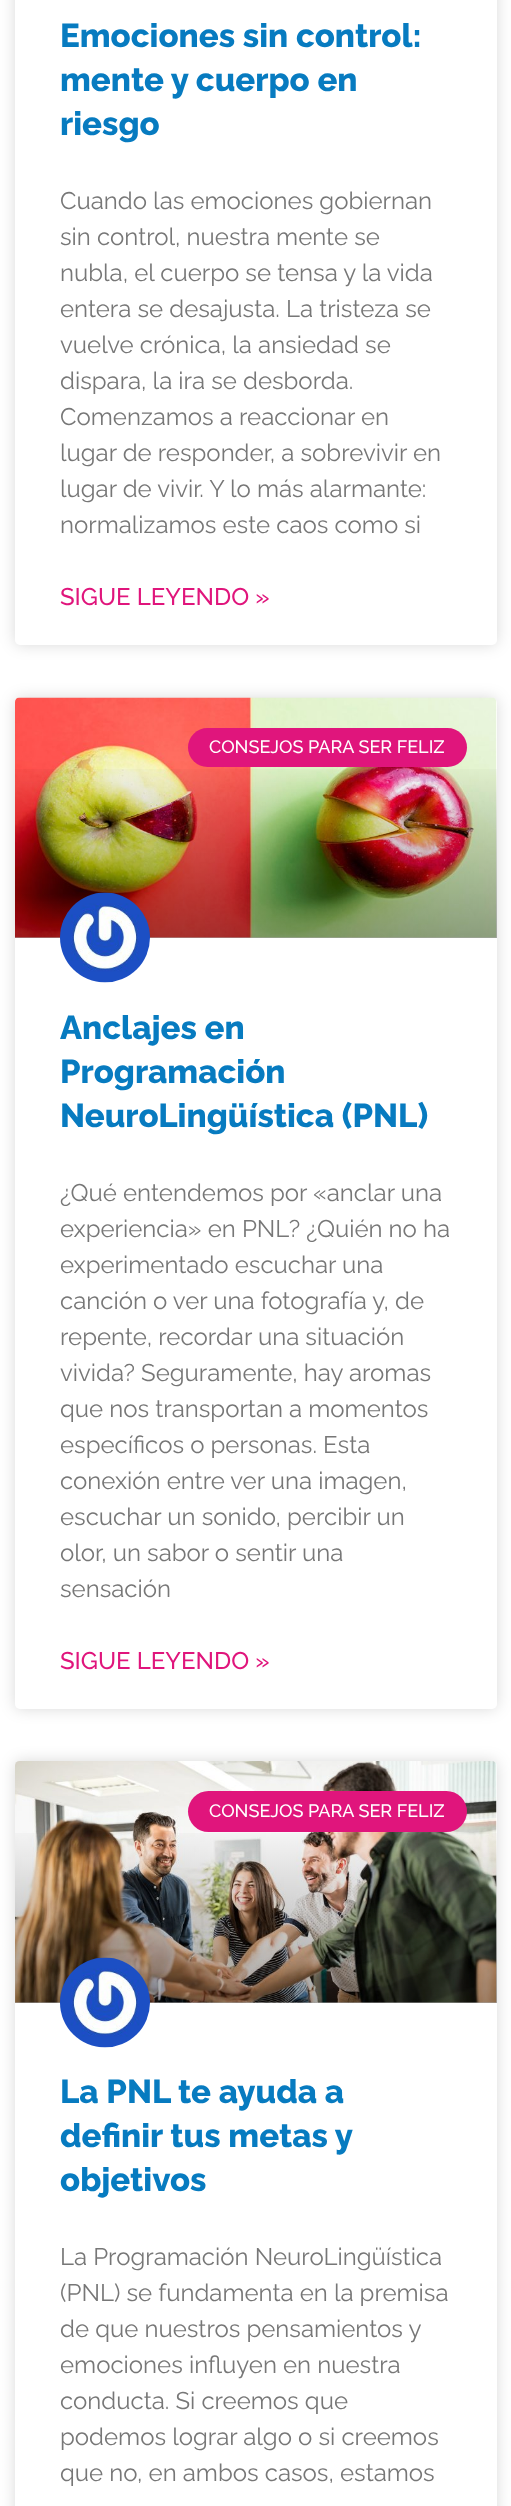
(async () => {
    const canvas = document.querySelector("canvas");
    canvas.width = 511;
    canvas.height = 2506;
    const context = canvas.getContext("2d");
    context.miterLimit = 4;
    context.fontKerning = "normal";
    function write(s, x, y, font, color) {
        context.font = font;
        context.fillStyle = color;
        context.fillText(s, x, y);
    }
    function block(x, y, w, h, color) {
        context.fillStyle = color;
        context.fillRect(x, y, w, h);
    }
    function card(x, y, w, h, r, color) {
        context.fillStyle = color;
        context.beginPath();
        context.roundRect(x, y, w, h, r);
        context.fill();
    }
    async function photo(src, x, y, w, h) {
        const img = new Image();
        img.src = src;
        await img.decode();
        context.drawImage(img, x, y, w, h);
    }
    let gradient;

    block(0, 0, 511, 2506, "rgb(255, 255, 255)");
    context.fillStyle = "rgba(0, 0, 0, 0.15)";
    context.filter = "blur(7.5px)";
    context.beginPath();
    context.roundRect(15, -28, 482, 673, 5);
    context.fill();
    context.filter = "none";
    card(15, -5, 482, 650, 5, "rgb(255, 255, 255)");
    write("Emociones sin control:", 60, 47, "800 33px Raleway", "rgb(7, 123, 192)");
    write("mente y cuerpo en", 60, 91, "800 33px Raleway", "rgb(7, 123, 192)");
    write("riesgo", 60, 135, "800 33px Raleway", "rgb(7, 123, 192)");
    write("Cuando las emociones gobiernan", 60, 209, "24px Raleway", "rgb(119, 119, 119)");
    write("sin control, nuestra mente se", 60, 245, "24px Raleway", "rgb(119, 119, 119)");
    write("nubla, el cuerpo se tensa y la vida", 60, 281, "24px Raleway", "rgb(119, 119, 119)");
    write("entera se desajusta. La tristeza se", 60, 317, "24px Raleway", "rgb(119, 119, 119)");
    write("vuelve crónica, la ansiedad se", 60, 353, "24px Raleway", "rgb(119, 119, 119)");
    write("dispara, la ira se desborda.", 60, 389, "24px Raleway", "rgb(119, 119, 119)");
    write("Comenzamos a reaccionar en", 60, 425, "24px Raleway", "rgb(119, 119, 119)");
    write("lugar de responder, a sobrevivir en", 60, 461, "24px Raleway", "rgb(119, 119, 119)");
    write("lugar de vivir. Y lo más alarmante:", 60, 497, "24px Raleway", "rgb(119, 119, 119)");
    write("normalizamos este caos como si", 60, 533, "24px Raleway", "rgb(119, 119, 119)");
    write("SIGUE LEYENDO »", 60, 605, "500 24px Raleway", "rgb(224, 21, 124)");
    context.fillStyle = "rgba(0, 0, 0, 0.15)";
    context.filter = "blur(7.5px)";
    context.beginPath();
    context.roundRect(15, 698, 482, 1011, 5);
    context.fill();
    context.filter = "none";
    card(15, 698, 482, 1011, 5, "rgb(255, 255, 255)");
    await photo("media/1.png", 15, 697, 482, 241);
    gradient = context.createLinearGradient(256, 938, 256, 698);
    gradient.addColorStop(0, "rgba(0, 0, 0, 0.35)");
    gradient.addColorStop(0.75, "rgba(0, 0, 0, 0)");
    context.fillStyle = gradient;
    context.fillRect(15, 769, 482, 169);
    card(188, 728, 279, 39, 19.5, "rgb(224, 21, 124)");
    write("CONSEJOS PARA SER FELIZ", 209, 753, "500 18px Raleway", "rgb(255, 255, 255)");
    await photo("media/2.png", 60, 892, 90, 91);
    write("Anclajes en", 60, 1039, "800 33px Raleway", "rgb(7, 123, 192)");
    write("Programación", 60, 1083, "800 33px Raleway", "rgb(7, 123, 192)");
    write("NeuroLingüística (PNL)", 60, 1127, "800 33px Raleway", "rgb(7, 123, 192)");
    write("¿Qué entendemos por «anclar una", 60, 1201, "24px Raleway", "rgb(119, 119, 119)");
    write("experiencia» en PNL? ¿Quién no ha", 60, 1237, "24px Raleway", "rgb(119, 119, 119)");
    write("experimentado escuchar una", 60, 1273, "24px Raleway", "rgb(119, 119, 119)");
    write("canción o ver una fotografía y, de", 60, 1309, "24px Raleway", "rgb(119, 119, 119)");
    write("repente, recordar una situación", 60, 1345, "24px Raleway", "rgb(119, 119, 119)");
    write("vivida? Seguramente, hay aromas", 60, 1381, "24px Raleway", "rgb(119, 119, 119)");
    write("que nos transportan a momentos", 60, 1417, "24px Raleway", "rgb(119, 119, 119)");
    write("específicos o personas. Esta", 60, 1453, "24px Raleway", "rgb(119, 119, 119)");
    write("conexión entre ver una imagen,", 60, 1489, "24px Raleway", "rgb(119, 119, 119)");
    write("escuchar un sonido, percibir un", 60, 1525, "24px Raleway", "rgb(119, 119, 119)");
    write("olor, un sabor o sentir una", 60, 1561, "24px Raleway", "rgb(119, 119, 119)");
    write("sensación", 60, 1597, "24px Raleway", "rgb(119, 119, 119)");
    write("SIGUE LEYENDO »", 60, 1669, "500 24px Raleway", "rgb(224, 21, 124)");
    context.fillStyle = "rgba(0, 0, 0, 0.15)";
    context.filter = "blur(7.5px)";
    context.beginPath();
    context.roundRect(15, 1761, 482, 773, 5);
    context.fill();
    context.filter = "none";
    card(15, 1761, 482, 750, 5, "rgb(255, 255, 255)");
    await photo("media/3.png", 15, 1761, 482, 242);
    gradient = context.createLinearGradient(256, 2003, 256, 1761);
    gradient.addColorStop(0, "rgba(0, 0, 0, 0.35)");
    gradient.addColorStop(0.75, "rgba(0, 0, 0, 0)");
    context.fillStyle = gradient;
    context.fillRect(15, 1833, 482, 170);
    card(188, 1791, 279, 41, 20.5, "rgb(224, 21, 124)");
    write("CONSEJOS PARA SER FELIZ", 209, 1817, "500 18px Raleway", "rgb(255, 255, 255)");
    await photo("media/4.png", 60, 1957, 90, 91);
    write("La PNL te ayuda a", 60, 2103, "800 33px Raleway", "rgb(7, 123, 192)");
    write("definir tus metas y", 60, 2147, "800 33px Raleway", "rgb(7, 123, 192)");
    write("objetivos", 60, 2191, "800 33px Raleway", "rgb(7, 123, 192)");
    write("La Programación NeuroLingüística", 60, 2265, "24px Raleway", "rgb(119, 119, 119)");
    write("(PNL) se fundamenta en la premisa", 60, 2301, "24px Raleway", "rgb(119, 119, 119)");
    write("de que nuestros pensamientos y", 60, 2337, "24px Raleway", "rgb(119, 119, 119)");
    write("emociones influyen en nuestra", 60, 2373, "24px Raleway", "rgb(119, 119, 119)");
    write("conducta. Si creemos que", 60, 2409, "24px Raleway", "rgb(119, 119, 119)");
    write("podemos lograr algo o si creemos", 60, 2445, "24px Raleway", "rgb(119, 119, 119)");
    write("que no, en ambos casos, estamos", 60, 2481, "24px Raleway", "rgb(119, 119, 119)");
})();
